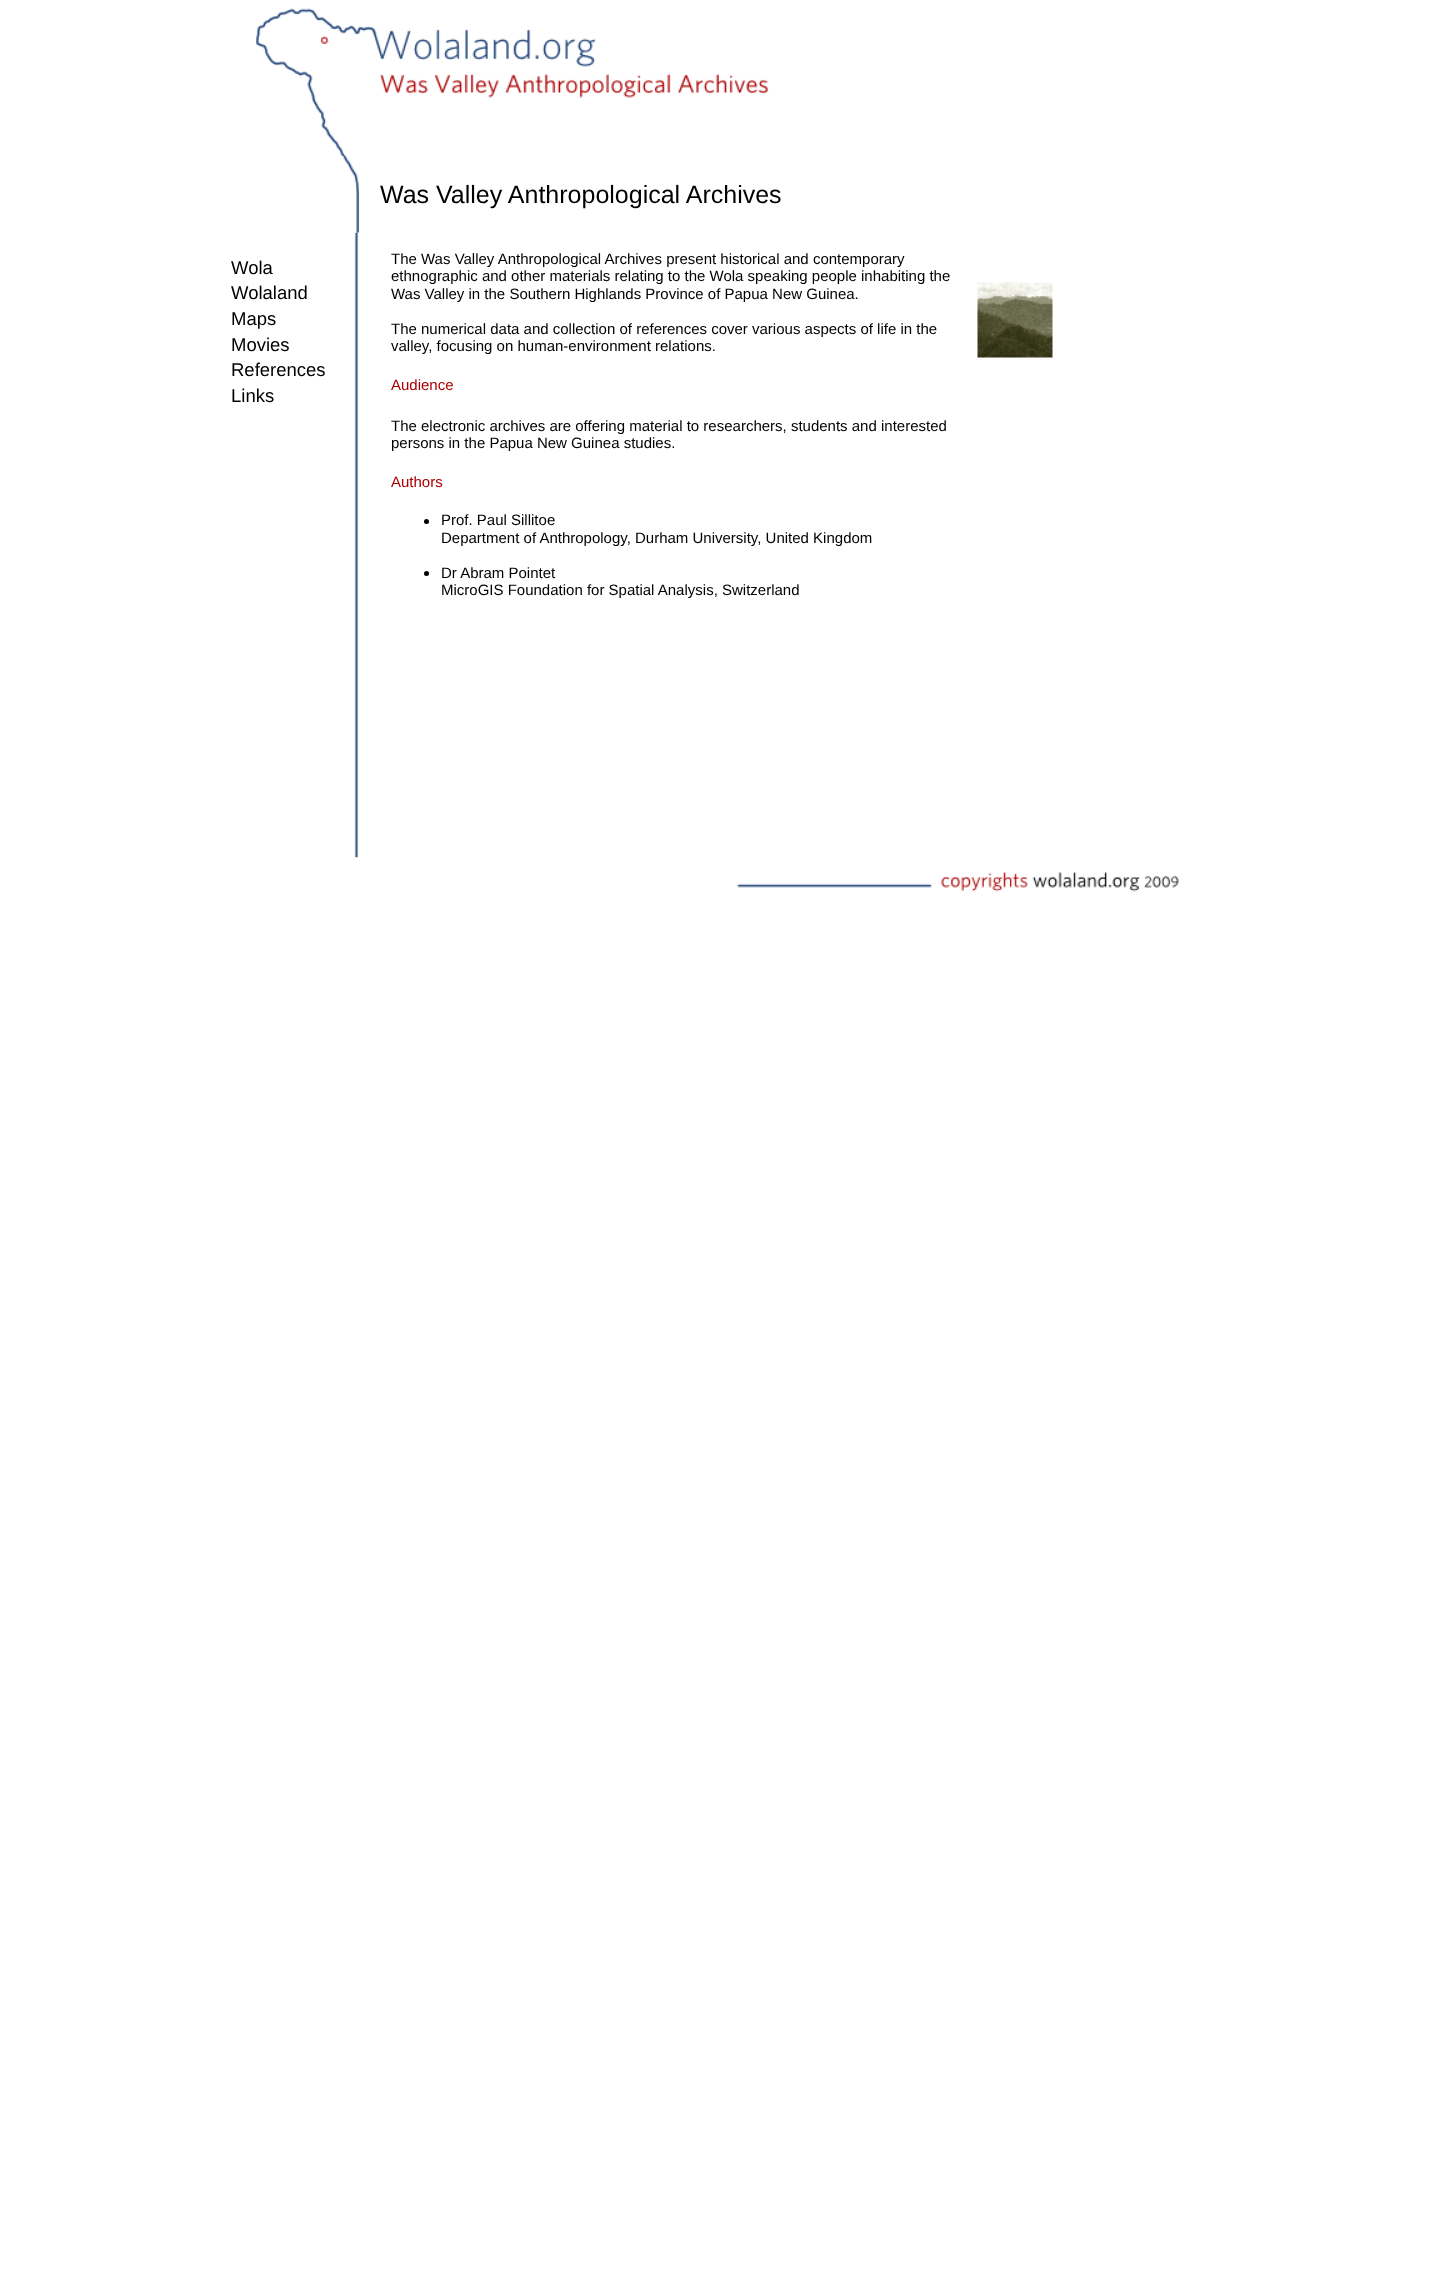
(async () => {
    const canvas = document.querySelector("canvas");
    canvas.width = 1436;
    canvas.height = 2295;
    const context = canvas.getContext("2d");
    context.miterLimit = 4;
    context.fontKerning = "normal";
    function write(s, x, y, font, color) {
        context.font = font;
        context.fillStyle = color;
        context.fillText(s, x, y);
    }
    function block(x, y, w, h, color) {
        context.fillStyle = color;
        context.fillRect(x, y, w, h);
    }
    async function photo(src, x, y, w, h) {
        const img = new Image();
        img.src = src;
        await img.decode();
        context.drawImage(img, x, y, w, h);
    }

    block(0, 0, 1436, 2295, "rgb(255, 255, 255)");
    await photo("media/1.png", 255, 8, 514, 149);
    await photo("media/3.png", 354, 232, 5, 626);
    await photo("media/2.png", 341, 156, 19, 77);
    write("Was Valley Anthropological Archives", 380, 203, "25px Liberation Sans", "rgb(0, 0, 0)");
    write("Wola", 231, 274, "18.5px Liberation Sans", "rgb(0, 0, 0)");
    write("Wolaland", 231, 299, "18.5px Liberation Sans", "rgb(0, 0, 0)");
    write("Maps", 231, 325, "18.5px Liberation Sans", "rgb(0, 0, 0)");
    write("Movies", 231, 351, "18.5px Liberation Sans", "rgb(0, 0, 0)");
    write("References", 231, 376, "18.5px Liberation Sans", "rgb(0, 0, 0)");
    write("Links", 231, 402, "18.5px Liberation Sans", "rgb(0, 0, 0)");
    write("The Was Valley Anthropological Archives present historical and contemporary", 391, 264, "15px Liberation Sans", "rgb(0, 0, 0)");
    write("ethnographic and other materials relating to the Wola speaking people inhabiting the", 391, 281, "15px Liberation Sans", "rgb(0, 0, 0)");
    write("Was Valley in the Southern Highlands Province of Papua New Guinea.", 391, 299, "15px Liberation Sans", "rgb(0, 0, 0)");
    write("The numerical data and collection of references cover various aspects of life in the", 391, 334, "15px Liberation Sans", "rgb(0, 0, 0)");
    write("valley, focusing on human-environment relations.", 391, 351, "15px Liberation Sans", "rgb(0, 0, 0)");
    write("Audience", 391, 390, "15px Liberation Sans", "rgb(170, 0, 0)");
    write("The electronic archives are offering material to researchers, students and interested", 391, 431, "15px Liberation Sans", "rgb(0, 0, 0)");
    write("persons in the Papua New Guinea studies.", 391, 448, "15px Liberation Sans", "rgb(0, 0, 0)");
    write("Authors", 391, 487, "15px Liberation Sans", "rgb(170, 0, 0)");
    context.fillStyle = "rgb(0, 0, 0)";
    context.beginPath();
    context.arc(426.5, 521.5, 2.5, 0, Math.PI * 2);
    context.fill();
    write("Prof. Paul Sillitoe", 441, 525, "15px Liberation Sans", "rgb(0, 0, 0)");
    write("Department of Anthropology, Durham University, United Kingdom", 441, 543, "15px Liberation Sans", "rgb(0, 0, 0)");
    context.beginPath();
    context.arc(426.5, 573.5, 2.5, 0, Math.PI * 2);
    context.fill();
    write("Dr Abram Pointet", 441, 578, "15px Liberation Sans", "rgb(0, 0, 0)");
    write("MicroGIS Foundation for Spatial Analysis, Switzerland", 441, 595, "15px Liberation Sans", "rgb(0, 0, 0)");
    await photo("media/4.png", 977, 282, 76, 76);
    await photo("media/5.png", 355, 857, 824, 35);
})();
